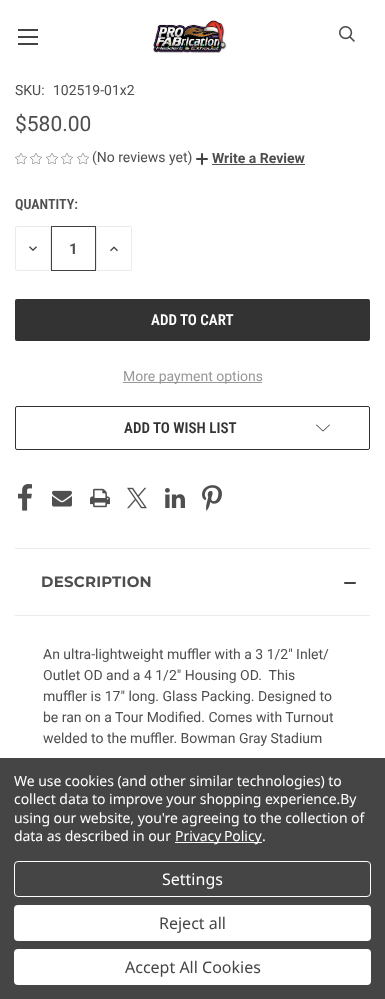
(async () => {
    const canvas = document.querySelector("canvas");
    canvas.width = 385;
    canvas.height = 999;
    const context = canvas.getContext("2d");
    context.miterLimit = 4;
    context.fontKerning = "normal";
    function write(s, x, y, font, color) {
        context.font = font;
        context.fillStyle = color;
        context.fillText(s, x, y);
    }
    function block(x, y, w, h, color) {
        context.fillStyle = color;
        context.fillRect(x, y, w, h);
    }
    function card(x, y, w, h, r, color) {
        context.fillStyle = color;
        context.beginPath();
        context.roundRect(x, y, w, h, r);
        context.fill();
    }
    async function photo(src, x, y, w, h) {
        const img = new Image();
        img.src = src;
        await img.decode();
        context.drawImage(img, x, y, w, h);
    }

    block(0, 0, 385, 999, "rgb(255, 255, 255)");
    block(18, 36, 20, 2, "rgb(66, 66, 66)");
    block(18, 29, 20, 2, "rgb(66, 66, 66)");
    block(18, 43, 20, 2, "rgb(66, 66, 66)");
    await photo("media/1.png", 153, 20, 74, 33);
    await photo("media/2.png", 339, 26, 16, 16);
    write("SKU:", 15, 95, "14px Roboto", "rgb(78, 78, 78)");
    write("102519-01x2", 53, 95, "14px Roboto", "rgb(78, 78, 78)");
    write("$580.00", 15, 131, "21px Roboto", "rgb(78, 78, 78)");
    await photo("media/3.png", 15, 153, 12, 11);
    await photo("media/3.png", 30, 153, 12, 11);
    await photo("media/3.png", 46, 153, 12, 11);
    await photo("media/3.png", 61, 153, 12, 11);
    await photo("media/3.png", 77, 153, 12, 11);
    write("(No reviews yet)", 92, 162, "14px Roboto", "rgb(78, 78, 78)");
    await photo("media/4.png", 196, 153, 12, 12);
    write("Write a Review", 212, 163, "bold 14px Roboto", "rgb(78, 78, 78)");
    block(212, 164, 93, 1, "rgb(79, 79, 79)");
    write("QUANTITY:", 15, 209, "600 14px Roboto Condensed", "rgb(78, 78, 78)");
    context.beginPath();
    context.roundRect(15.5, 226.5, 35, 44, 1.5);
    context.strokeStyle = "rgb(235, 235, 235)";
    context.stroke();
    await photo("media/5.png", 29, 246, 8, 5);
    context.strokeStyle = "rgb(66, 66, 66)";
    context.strokeRect(51.5, 226.5, 44, 44);
    write("1", 69, 254, "bold 15px Roboto", "rgb(78, 78, 78)");
    context.beginPath();
    context.roundRect(96.5, 226.5, 35, 44, 1.5);
    context.strokeStyle = "rgb(235, 235, 235)";
    context.stroke();
    await photo("media/6.png", 110, 246, 8, 6);
    card(15, 299, 355, 42, 2, "rgb(51, 51, 51)");
    write("ADD TO CART", 151, 325, "600 15px Roboto Condensed", "rgb(255, 255, 255)");
    block(123, 382, 139, 1, "rgb(152, 152, 152)");
    write("More payment options", 123, 381, "14px Roboto", "rgb(152, 152, 152)");
    context.beginPath();
    context.roundRect(15.5, 406.5, 354, 43, 1.5);
    context.strokeStyle = "rgb(51, 51, 51)";
    context.stroke();
    write("ADD TO WISH LIST", 124, 433, "600 15px Roboto Condensed", "rgb(51, 51, 51)");
    await photo("media/7.png", 316, 424, 14, 8);
    await photo("media/8.png", 18, 484, 14, 27);
    await photo("media/9.png", 52, 490, 20, 17);
    await photo("media/10.png", 90, 488, 20, 20);
    await photo("media/11.png", 127, 487, 20, 22);
    await photo("media/12.png", 165, 488, 20, 20);
    await photo("media/13.png", 202, 485, 20, 26);
    block(15, 548, 355, 1, "rgb(235, 235, 235)");
    block(15, 615, 355, 1, "rgb(235, 235, 235)");
    context.letterSpacing = "0.25px";
    write("DESCRIPTION", 41, 587, "bold 15px Montserrat", "rgb(78, 78, 78)");
    await photo("media/14.png", 344, 582, 12, 2);
    context.letterSpacing = "0px";
    write("An ultra-lightweight muffler with a 3 1/2\" Inlet/", 43, 659, "14px Roboto", "rgb(78, 78, 78)");
    write("Outlet OD and a 4 1/2\" Housing OD.  This", 43, 680, "14px Roboto", "rgb(78, 78, 78)");
    write("muffler is 17\" long. Glass Packing. Designed to", 43, 701, "14px Roboto", "rgb(78, 78, 78)");
    write("be ran on a Tour Modified. Comes with Turnout", 43, 722, "14px Roboto", "rgb(78, 78, 78)");
    write("welded to the muffler. Bowman Gray Stadium", 43, 743, "14px Roboto", "rgb(78, 78, 78)");
    block(0, 758, 385, 241, "rgb(69, 69, 69)");
    context.letterSpacing = "-0.05px";
    write("We use cookies (and other similar technologies) to", 14, 786, "14px Noto Sans", "rgb(255, 255, 255)");
    write("collect data to improve your shopping experience.By", 14, 804, "14px Noto Sans", "rgb(255, 255, 255)");
    write("using our website, you're agreeing to the collection of", 14, 823, "14px Noto Sans", "rgb(255, 255, 255)");
    write("data as described in our", 14, 841, "14px Noto Sans", "rgb(255, 255, 255)");
    block(175, 842, 87, 1, "rgb(255, 255, 255)");
    context.wordSpacing = "-1px";
    write("Privacy Policy", 175, 841, "14px Noto Sans", "rgb(255, 255, 255)");
    context.wordSpacing = "0px";
    write(".", 262, 841, "14px Noto Sans", "rgb(255, 255, 255)");
    context.beginPath();
    context.roundRect(14.5, 861.5, 356, 35, 3.5);
    context.strokeStyle = "rgb(255, 255, 255)";
    context.stroke();
    context.letterSpacing = "0px";
    write("Settings", 162, 885, "16px Noto Sans", "rgb(255, 255, 255)");
    card(14, 905, 357, 36, 4, "rgb(255, 255, 255)");
    write("Reject all", 159, 929, "16px Noto Sans", "rgb(69, 69, 69)");
    card(14, 949, 357, 36, 4, "rgb(255, 255, 255)");
    write("Accept All Cookies", 125, 973, "16px Noto Sans", "rgb(69, 69, 69)");
})();
